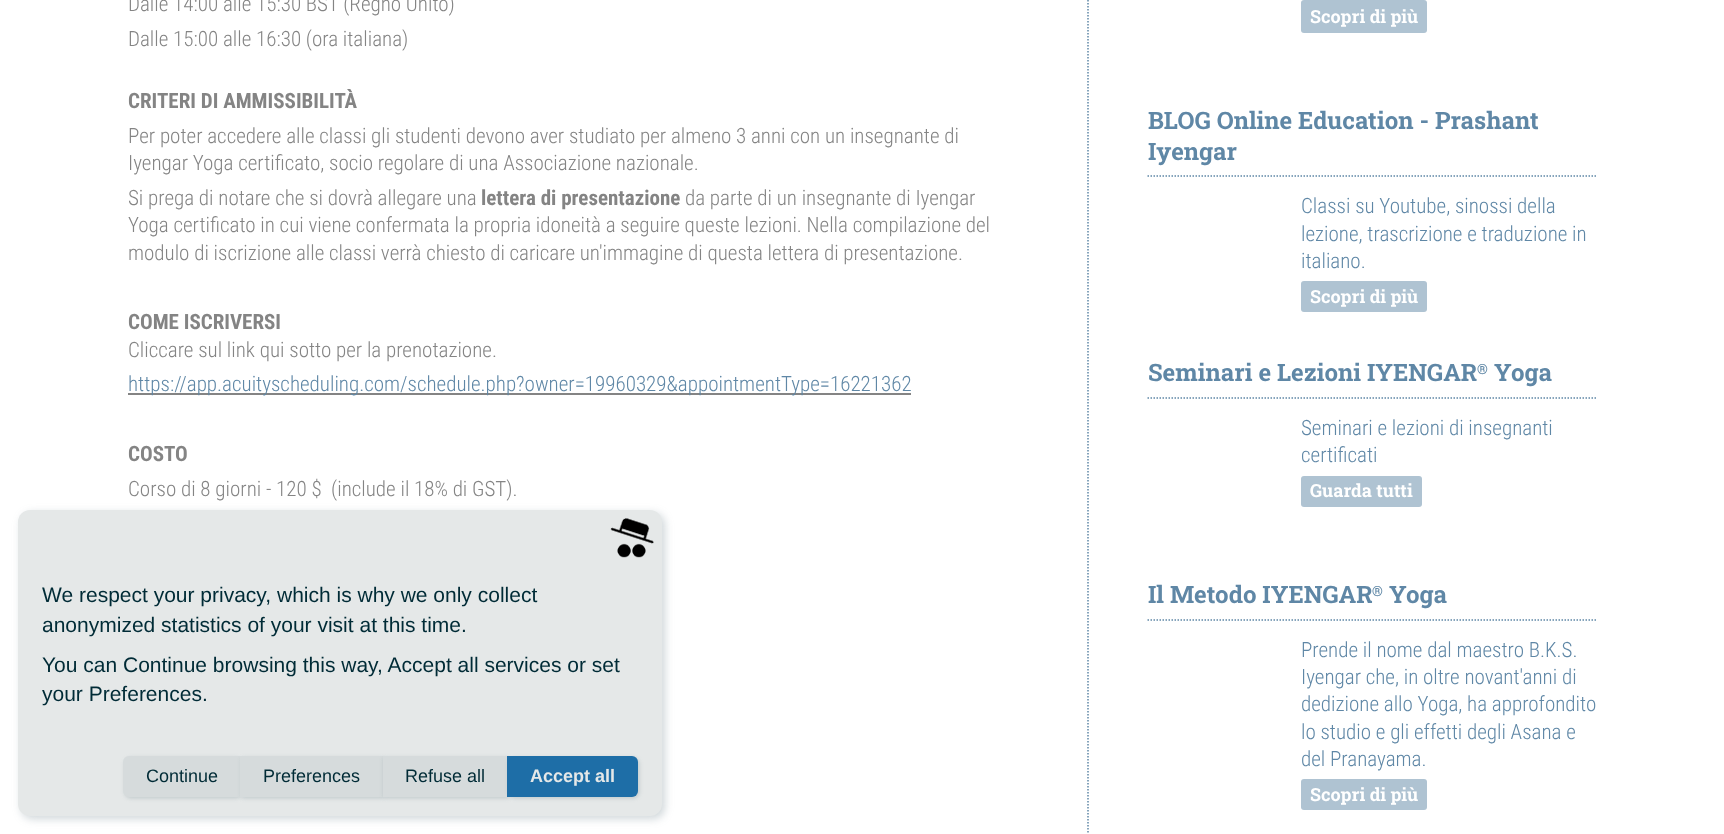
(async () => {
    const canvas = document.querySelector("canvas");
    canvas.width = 1724;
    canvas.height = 834;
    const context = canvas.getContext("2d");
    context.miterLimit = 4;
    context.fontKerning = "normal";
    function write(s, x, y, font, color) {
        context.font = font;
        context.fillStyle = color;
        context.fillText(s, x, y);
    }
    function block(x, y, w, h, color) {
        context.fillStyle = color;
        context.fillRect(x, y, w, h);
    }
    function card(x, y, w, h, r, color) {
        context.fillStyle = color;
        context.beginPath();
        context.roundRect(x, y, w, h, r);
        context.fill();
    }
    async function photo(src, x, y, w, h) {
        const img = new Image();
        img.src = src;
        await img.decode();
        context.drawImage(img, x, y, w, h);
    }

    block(0, 0, 1724, 834, "rgb(255, 255, 255)");
    context.beginPath();
    context.moveTo(1088, -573);
    context.lineTo(1088, 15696);
    context.strokeStyle = "rgb(95, 135, 166)";
    context.lineWidth = 1.5;
    context.setLineDash([1.5, 1.5]);
    context.stroke();
    write("Dalle 14:00 alle 15:30 BST (Regno Unito)", 128, 11, "300 21px Roboto Condensed", "rgb(132, 132, 132)");
    write("Dalle 15:00 alle 16:30 (ora italiana)", 128, 46, "300 21px Roboto Condensed", "rgb(132, 132, 132)");
    write("CRITERI DI AMMISSIBILITÀ", 128, 108, "bold 21px Roboto Condensed", "rgb(132, 132, 132)");
    write("Per poter accedere alle classi gli studenti devono aver studiato per almeno 3 anni con un insegnante di", 128, 143, "300 21px Roboto Condensed", "rgb(132, 132, 132)");
    write("Iyengar Yoga certificato, socio regolare di una Associazione nazionale.", 128, 170, "300 21px Roboto Condensed", "rgb(132, 132, 132)");
    write("Si prega di notare che si dovrà allegare una", 128, 205, "300 21px Roboto Condensed", "rgb(132, 132, 132)");
    write("lettera di presentazione", 481, 205, "bold 21px Roboto Condensed", "rgb(132, 132, 132)");
    write("da parte di un insegnante di Iyengar", 685, 205, "300 21px Roboto Condensed", "rgb(132, 132, 132)");
    write("Yoga certificato in cui viene confermata la propria idoneità a seguire queste lezioni. Nella compilazione del", 128, 232, "300 21px Roboto Condensed", "rgb(132, 132, 132)");
    write("modulo di iscrizione alle classi verrà chiesto di caricare un'immagine di questa lettera di presentazione.", 128, 260, "300 21px Roboto Condensed", "rgb(132, 132, 132)");
    write("COME ISCRIVERSI", 128, 329, "bold 21px Roboto Condensed", "rgb(132, 132, 132)");
    write("Cliccare sul link qui sotto per la prenotazione.", 128, 357, "300 21px Roboto Condensed", "rgb(132, 132, 132)");
    block(128, 393, 783, 2, "rgb(132, 132, 132)");
    write("https://app.acuityscheduling.com/schedule.php?owner=19960329&appointmentType=16221362", 128, 391, "300 21px Roboto Condensed", "rgb(95, 135, 166)");
    write("COSTO", 128, 461, "bold 21px Roboto Condensed", "rgb(132, 132, 132)");
    write("Corso di 8 giorni - 120 $  (include il 18% di GST).", 128, 496, "300 21px Roboto Condensed", "rgb(132, 132, 132)");
    card(1301, 0, 126, 33, 3, "rgb(175, 195, 210)");
    write("Scopri di più", 1310, 23, "bold 18px Roboto Slab", "rgb(255, 255, 255)");
    context.beginPath();
    context.moveTo(1147.5, 176);
    context.lineTo(1597.5, 176);
    context.stroke();
    write("BLOG Online Education - Prashant", 1148, 129, "bold 24px Roboto Slab", "rgb(95, 135, 166)");
    write("Iyengar", 1148, 160, "bold 24px Roboto Slab", "rgb(95, 135, 166)");
    write("Classi su Youtube, sinossi della", 1301, 213, "300 21px Roboto Condensed", "rgb(95, 135, 166)");
    write("lezione, trascrizione e traduzione in", 1301, 241, "300 21px Roboto Condensed", "rgb(95, 135, 166)");
    write("italiano.", 1301, 268, "300 21px Roboto Condensed", "rgb(95, 135, 166)");
    card(1301, 281, 126, 31, 3, "rgb(175, 195, 210)");
    write("Scopri di più", 1310, 303, "bold 18px Roboto Slab", "rgb(255, 255, 255)");
    context.beginPath();
    context.moveTo(1147.5, 398);
    context.lineTo(1597.5, 398);
    context.stroke();
    write("Seminari e Lezioni IYENGAR", 1148, 381, "bold 24px Roboto Slab", "rgb(95, 135, 166)");
    write("®", 1477, 374, "bold 14px Roboto Slab", "rgb(95, 135, 166)");
    write("Yoga", 1494, 381, "bold 24px Roboto Slab", "rgb(95, 135, 166)");
    write("Seminari e lezioni di insegnanti", 1301, 435, "300 21px Roboto Condensed", "rgb(95, 135, 166)");
    write("certificati", 1301, 462, "300 21px Roboto Condensed", "rgb(95, 135, 166)");
    card(1301, 476, 121, 31, 3, "rgb(175, 195, 210)");
    write("Guarda tutti", 1310, 497, "bold 18px Roboto Slab", "rgb(255, 255, 255)");
    context.beginPath();
    context.moveTo(1147.5, 620);
    context.lineTo(1597.5, 620);
    context.stroke();
    write("Il Metodo IYENGAR", 1148, 603, "bold 24px Roboto Slab", "rgb(95, 135, 166)");
    write("®", 1372, 596, "bold 14px Roboto Slab", "rgb(95, 135, 166)");
    write("Yoga", 1389, 603, "bold 24px Roboto Slab", "rgb(95, 135, 166)");
    write("Prende il nome dal maestro B.K.S.", 1301, 657, "300 21px Roboto Condensed", "rgb(95, 135, 166)");
    write("Iyengar che, in oltre novant'anni di", 1301, 684, "300 21px Roboto Condensed", "rgb(95, 135, 166)");
    write("dedizione allo Yoga, ha approfondito", 1301, 711, "300 21px Roboto Condensed", "rgb(95, 135, 166)");
    write("lo studio e gli effetti degli Asana e", 1301, 739, "300 21px Roboto Condensed", "rgb(95, 135, 166)");
    write("del Pranayama.", 1301, 766, "300 21px Roboto Condensed", "rgb(95, 135, 166)");
    card(1301, 779, 126, 31, 3, "rgb(175, 195, 210)");
    write("Scopri di più", 1310, 801, "bold 18px Roboto Slab", "rgb(255, 255, 255)");
    context.fillStyle = "rgba(101, 123, 131, 0.3)";
    context.filter = "blur(4px)";
    context.beginPath();
    context.roundRect(21, 513, 644, 306, 12);
    context.fill();
    context.filter = "none";
    card(18, 510, 644, 306, 12, "rgb(229, 232, 232)");
    await photo("media/2.png", 617, 543, 29, 15);
    await photo("media/1.png", 610, 518, 44, 26);
    write("We respect your privacy, which is why we only collect", 42, 602, "21px Liberation Sans", "rgb(0, 43, 54)");
    write("anonymized statistics of your visit at this time.", 42, 632, "21px Liberation Sans", "rgb(0, 43, 54)");
    write("You can Continue browsing this way, Accept all services or set", 42, 672, "21px Liberation Sans", "rgb(0, 43, 54)");
    write("your Preferences.", 42, 701, "21px Liberation Sans", "rgb(0, 43, 54)");
    context.fillStyle = "rgba(101, 123, 131, 0.3)";
    context.filter = "blur(2px)";
    context.beginPath();
    context.roundRect(125, 758, 117, 40, 6);
    context.fill();
    context.filter = "none";
    context.fillStyle = "rgb(214, 219, 220)";
    context.beginPath();
    context.roundRect(123, 756, 117, 41, [6, 0, 0, 6]);
    context.fill();
    write("Continue", 146, 782, "18px Liberation Sans", "rgb(0, 43, 54)");
    context.fillStyle = "rgba(101, 123, 131, 0.3)";
    context.filter = "blur(2px)";
    context.beginPath();
    context.rect(242, 758, 142, 40);
    context.fill();
    context.filter = "none";
    block(240, 756, 143, 41, "rgb(214, 219, 220)");
    write("Preferences", 263, 782, "18px Liberation Sans", "rgb(0, 43, 54)");
    context.fillStyle = "rgba(101, 123, 131, 0.3)";
    context.filter = "blur(2px)";
    context.beginPath();
    context.rect(384, 758, 125, 40);
    context.fill();
    context.filter = "none";
    block(383, 756, 124, 41, "rgb(214, 219, 220)");
    write("Refuse all", 405, 782, "18px Liberation Sans", "rgb(0, 43, 54)");
    context.fillStyle = "rgba(101, 123, 131, 0.3)";
    context.filter = "blur(2px)";
    context.beginPath();
    context.roundRect(509, 758, 130, 40, 6);
    context.fill();
    context.filter = "none";
    context.fillStyle = "rgb(30, 110, 167)";
    context.beginPath();
    context.roundRect(507, 756, 131, 41, [0, 6, 6, 0]);
    context.fill();
    write("Accept all", 530, 782, "bold 18px Liberation Sans", "rgb(229, 232, 232)");
})();
